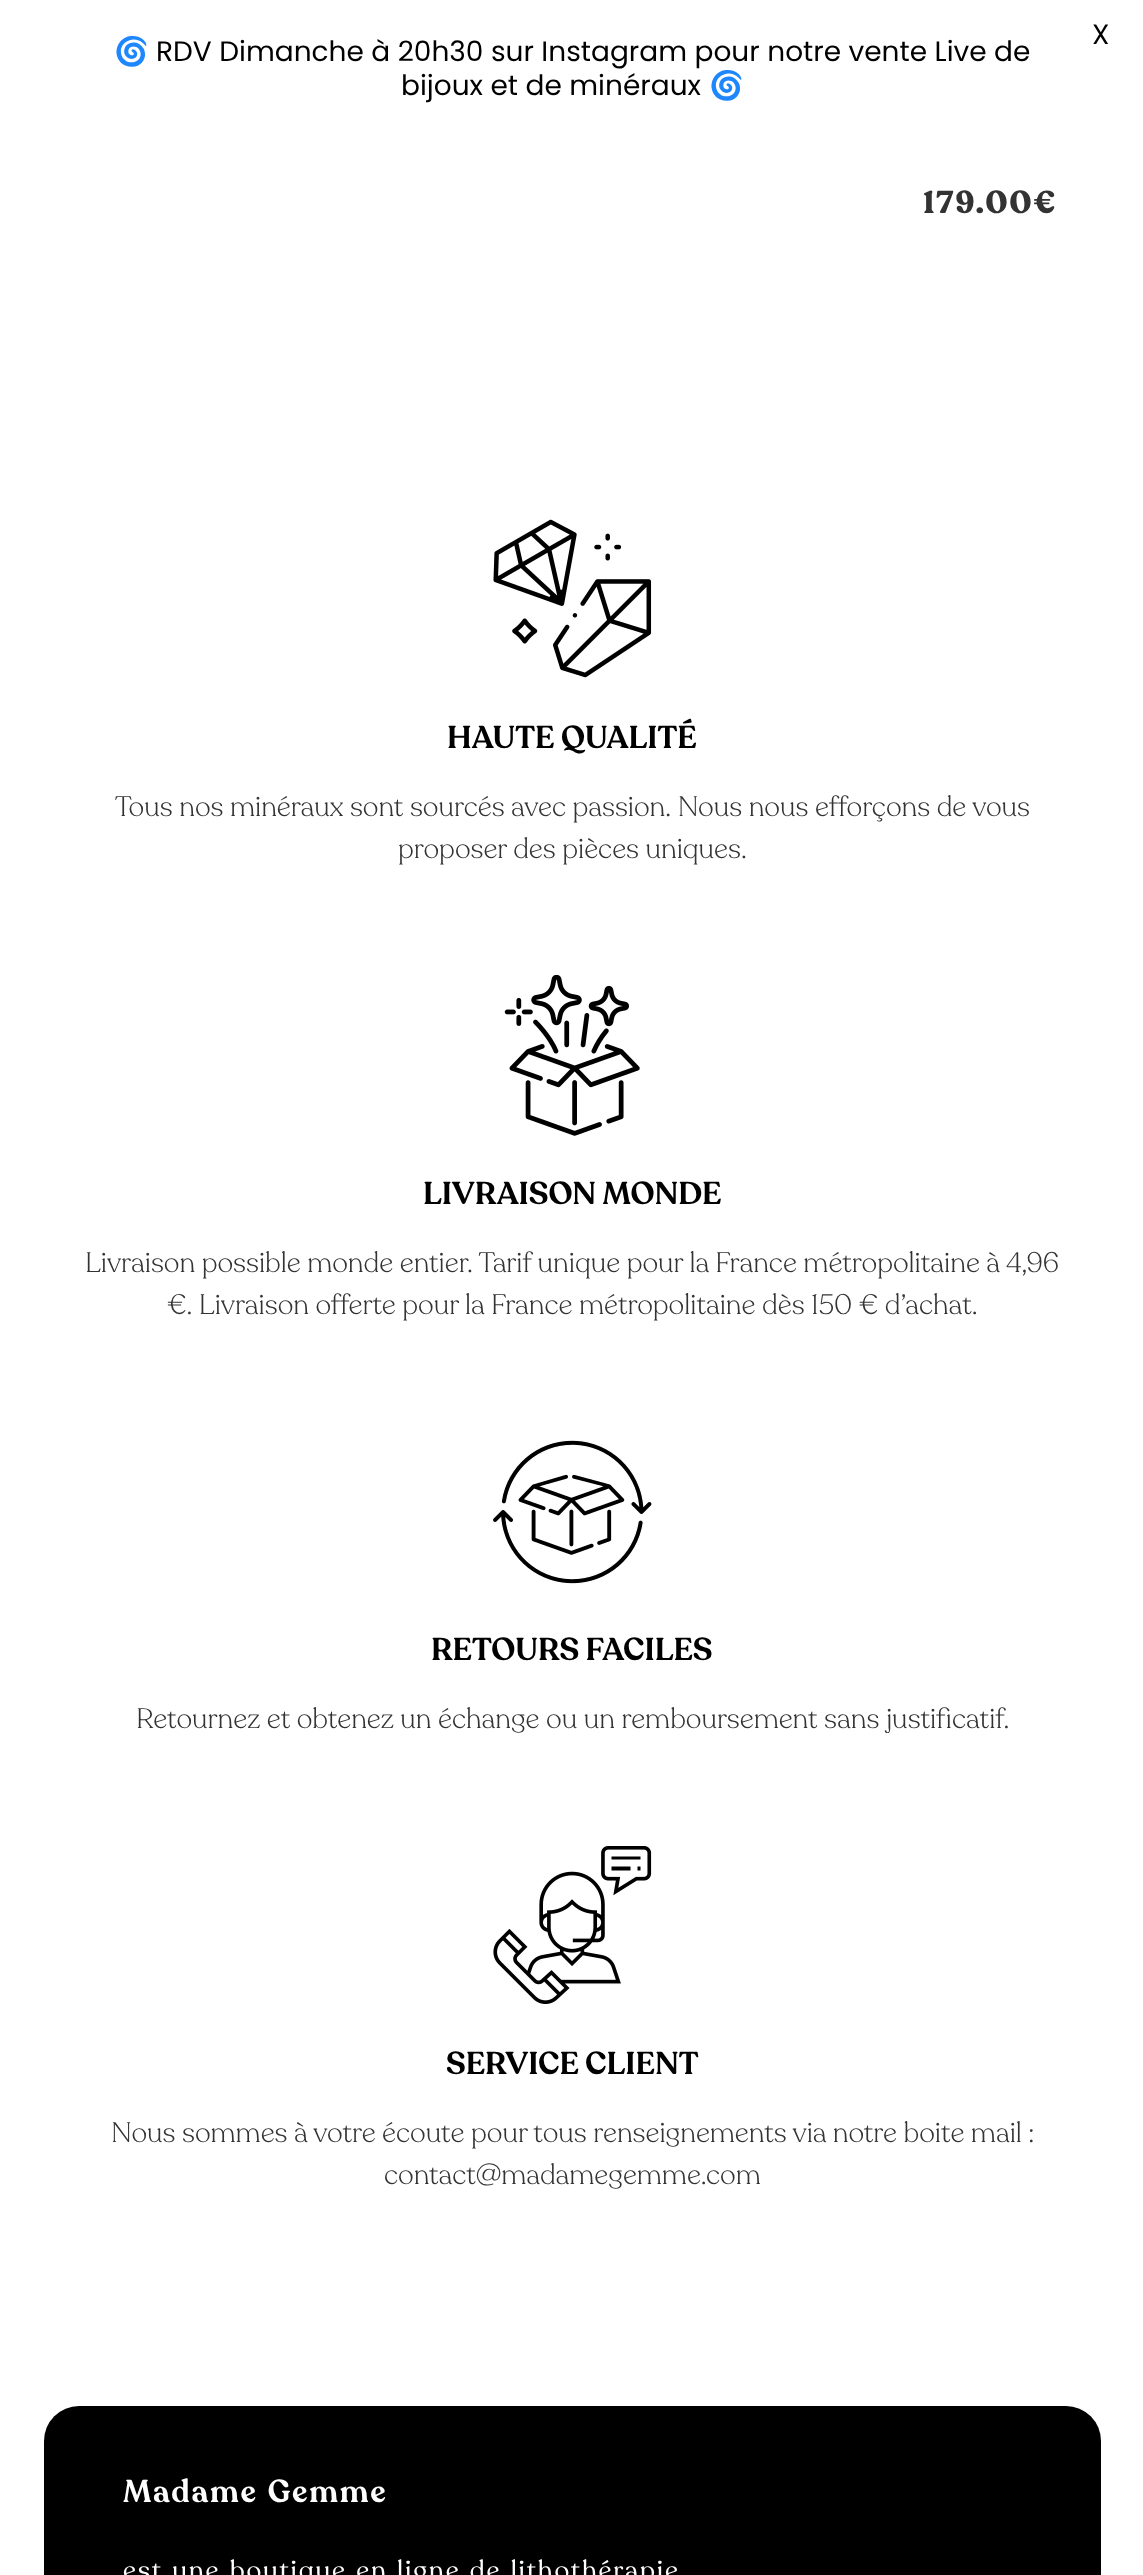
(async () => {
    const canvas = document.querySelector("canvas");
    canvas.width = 1143;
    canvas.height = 2575;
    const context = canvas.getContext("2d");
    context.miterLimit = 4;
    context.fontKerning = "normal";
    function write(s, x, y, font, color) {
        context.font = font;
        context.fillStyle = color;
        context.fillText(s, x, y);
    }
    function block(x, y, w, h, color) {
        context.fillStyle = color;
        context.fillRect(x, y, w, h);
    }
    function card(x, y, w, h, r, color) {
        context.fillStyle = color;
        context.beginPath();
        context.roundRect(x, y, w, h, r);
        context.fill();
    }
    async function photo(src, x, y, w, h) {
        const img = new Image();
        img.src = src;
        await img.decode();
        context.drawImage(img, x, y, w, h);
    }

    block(0, 0, 1143, 2575, "rgb(255, 255, 255)");
    write("🌀", 114, 61, "28px Noto Color Emoji", "rgb(0, 0, 0)");
    write("RDV Dimanche à 20h30 sur Instagram pour notre vente Live de", 156, 61, "28px Poppins", "rgb(0, 0, 0)");
    write("bijoux et de minéraux", 401, 95, "28px Poppins", "rgb(0, 0, 0)");
    write("🌀", 709, 95, "28px Noto Color Emoji", "rgb(0, 0, 0)");
    write("X", 1092, 44, "28px Poppins", "rgb(0, 0, 0)");
    context.letterSpacing = "1.75px";
    write("179.00€", 923, 213, "bold 31.5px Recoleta", "rgb(51, 51, 51)");
    await photo("media/1.png", 493, 519, 159, 159);
    context.letterSpacing = "0px";
    write("HAUTE QUALITÉ", 447, 748, "600 31.5px Recoleta", "rgb(0, 0, 0)");
    write("Tous nos minéraux sont sourcés avec passion. Nous nous efforçons de vous", 115, 816, "300 28px Recoleta", "rgb(51, 51, 51)");
    write("proposer des pièces uniques.", 398, 858, "300 28px Recoleta", "rgb(51, 51, 51)");
    await photo("media/2.png", 504, 975, 136, 161);
    write("LIVRAISON MONDE", 423, 1204, "600 31.5px Recoleta", "rgb(0, 0, 0)");
    write("Livraison possible monde entier. Tarif unique pour la France métropolitaine à 4,96", 85, 1272, "300 28px Recoleta", "rgb(51, 51, 51)");
    write("€. Livraison offerte pour la France métropolitaine dès 150 € d’achat.", 167, 1314, "300 28px Recoleta", "rgb(51, 51, 51)");
    await photo("media/3.png", 492, 1440, 160, 144);
    write("RETOURS FACILES", 431, 1660, "600 31.5px Recoleta", "rgb(0, 0, 0)");
    write("Retournez et obtenez un échange ou un remboursement sans justificatif.", 136, 1728, "300 28px Recoleta", "rgb(51, 51, 51)");
    await photo("media/4.png", 493, 1846, 159, 158);
    write("SERVICE CLIENT", 446, 2074, "600 31.5px Recoleta", "rgb(0, 0, 0)");
    write("Nous sommes à votre écoute pour tous renseignements via notre boite mail :", 111, 2142, "300 28px Recoleta", "rgb(51, 51, 51)");
    write("contact@madamegemme.com", 384, 2184, "300 28px Recoleta", "rgb(51, 51, 51)");
    card(44, 2406, 1057, 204, 35, "rgb(0, 0, 0)");
    context.letterSpacing = "1.75px";
    context.wordSpacing = "1.75px";
    write("Madame Gemme", 123, 2502, "600 31.5px Recoleta", "rgb(255, 255, 255)");
    write("est une boutique en ligne de lithothérapie", 123, 2579, "26.25px Recoleta", "rgb(255, 255, 255)");
})();
